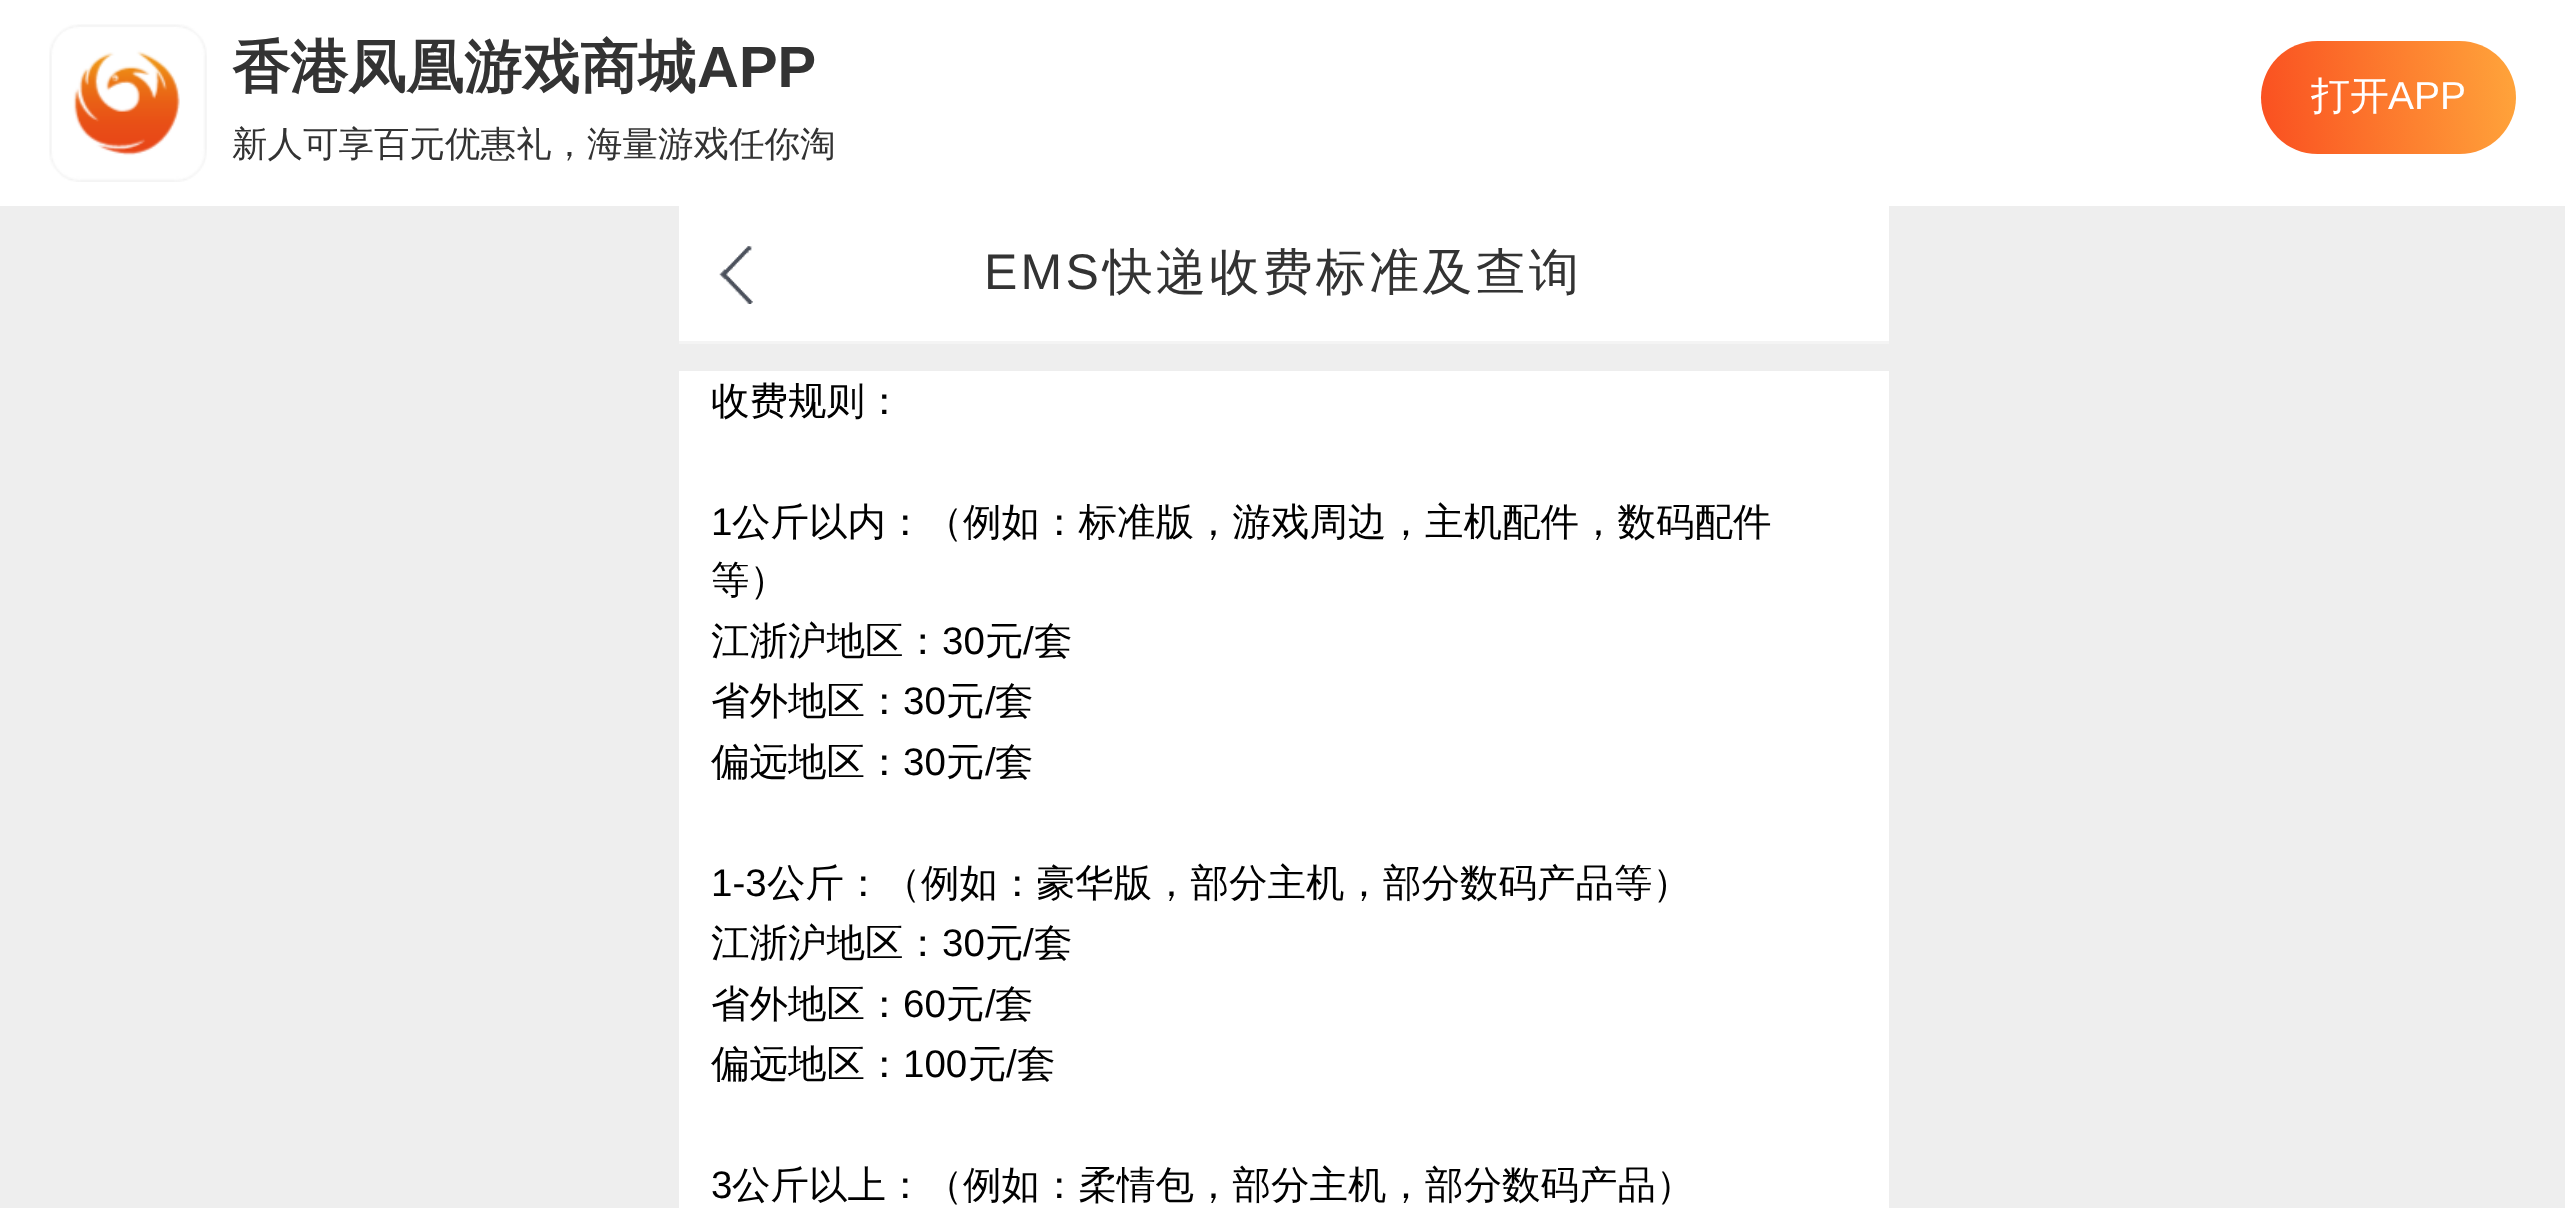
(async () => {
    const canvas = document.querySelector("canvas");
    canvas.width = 2565;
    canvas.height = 1208;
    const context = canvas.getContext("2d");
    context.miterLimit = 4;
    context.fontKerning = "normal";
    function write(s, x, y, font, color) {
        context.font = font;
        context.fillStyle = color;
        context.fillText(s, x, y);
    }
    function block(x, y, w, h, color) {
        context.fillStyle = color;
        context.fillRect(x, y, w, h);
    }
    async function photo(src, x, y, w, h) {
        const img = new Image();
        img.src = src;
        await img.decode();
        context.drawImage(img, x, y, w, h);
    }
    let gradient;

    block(0, 0, 2565, 1208, "rgb(238, 238, 238)");
    block(0, 0, 2565, 206, "rgb(255, 255, 255)");
    await photo("media/1.png", 49, 24, 158, 158);
    write("香港凤凰游戏商城", 232, 87, "bold 58px WenQuanYi Zen Hei", "rgb(51, 51, 51)");
    write("APP", 697, 87, "bold 58px Liberation Sans", "rgb(51, 51, 51)");
    write("新人可享百元优惠礼，海量游戏任你淘", 232, 156, "500 35.5px WenQuanYi Zen Hei", "rgb(51, 51, 51)");
    gradient = context.createLinearGradient(2521, 84, 2256, 112);
    gradient.addColorStop(0, "rgb(255, 165, 59)");
    gradient.addColorStop(1, "rgb(250, 79, 32)");
    context.fillStyle = gradient;
    context.beginPath();
    context.roundRect(2261, 41, 255, 113, 56.5);
    context.fill();
    write("打开", 2311, 109, "500 39px WenQuanYi Zen Hei", "rgb(255, 255, 255)");
    write("APP", 2388, 109, "39px Liberation Sans", "rgb(255, 255, 255)");
    block(679, 206, 1210, 135, "rgb(255, 255, 255)");
    block(679, 341, 1210, 3, "rgb(244, 244, 244)");
    await photo("media/2.png", 719, 246, 34, 58);
    context.letterSpacing = "3.25px";
    write("EMS", 984, 289, "50px Liberation Sans", "rgb(51, 51, 51)");
    write("快递收费标准及查询", 1103, 289, "500 50px WenQuanYi Zen Hei", "rgb(51, 51, 51)");
    block(679, 371, 1210, 837, "rgb(255, 255, 255)");
    context.letterSpacing = "0px";
    write("收费规则：", 711, 414, "500 38.5px WenQuanYi Zen Hei", "rgb(0, 0, 0)");
    write("1", 711, 535, "38.5px Liberation Sans", "rgb(0, 0, 0)");
    write("公斤以内：（例如：标准版，游戏周边，主机配件，数码配件", 732, 535, "500 38.5px WenQuanYi Zen Hei", "rgb(0, 0, 0)");
    write("等）", 711, 593, "500 38.5px WenQuanYi Zen Hei", "rgb(0, 0, 0)");
    write("江浙沪地区：", 711, 654, "500 38.5px WenQuanYi Zen Hei", "rgb(0, 0, 0)");
    write("30", 942, 654, "38.5px Liberation Sans", "rgb(0, 0, 0)");
    write("元", 985, 654, "500 38.5px WenQuanYi Zen Hei", "rgb(0, 0, 0)");
    write("/", 1023, 654, "38.5px Liberation Sans", "rgb(0, 0, 0)");
    write("套", 1034, 654, "500 38.5px WenQuanYi Zen Hei", "rgb(0, 0, 0)");
    write("省外地区：", 711, 714, "500 38.5px WenQuanYi Zen Hei", "rgb(0, 0, 0)");
    write("30", 903, 714, "38.5px Liberation Sans", "rgb(0, 0, 0)");
    write("元", 946, 714, "500 38.5px WenQuanYi Zen Hei", "rgb(0, 0, 0)");
    write("/", 985, 714, "38.5px Liberation Sans", "rgb(0, 0, 0)");
    write("套", 995, 714, "500 38.5px WenQuanYi Zen Hei", "rgb(0, 0, 0)");
    write("偏远地区：", 711, 775, "500 38.5px WenQuanYi Zen Hei", "rgb(0, 0, 0)");
    write("30", 903, 775, "38.5px Liberation Sans", "rgb(0, 0, 0)");
    write("元", 946, 775, "500 38.5px WenQuanYi Zen Hei", "rgb(0, 0, 0)");
    write("/", 985, 775, "38.5px Liberation Sans", "rgb(0, 0, 0)");
    write("套", 995, 775, "500 38.5px WenQuanYi Zen Hei", "rgb(0, 0, 0)");
    write("1-3", 711, 896, "38.5px Liberation Sans", "rgb(0, 0, 0)");
    write("公斤：（例如：豪华版，部分主机，部分数码产品等）", 767, 896, "500 38.5px WenQuanYi Zen Hei", "rgb(0, 0, 0)");
    write("江浙沪地区：", 711, 956, "500 38.5px WenQuanYi Zen Hei", "rgb(0, 0, 0)");
    write("30", 942, 956, "38.5px Liberation Sans", "rgb(0, 0, 0)");
    write("元", 985, 956, "500 38.5px WenQuanYi Zen Hei", "rgb(0, 0, 0)");
    write("/", 1023, 956, "38.5px Liberation Sans", "rgb(0, 0, 0)");
    write("套", 1034, 956, "500 38.5px WenQuanYi Zen Hei", "rgb(0, 0, 0)");
    write("省外地区：", 711, 1017, "500 38.5px WenQuanYi Zen Hei", "rgb(0, 0, 0)");
    write("60", 903, 1017, "38.5px Liberation Sans", "rgb(0, 0, 0)");
    write("元", 946, 1017, "500 38.5px WenQuanYi Zen Hei", "rgb(0, 0, 0)");
    write("/", 985, 1017, "38.5px Liberation Sans", "rgb(0, 0, 0)");
    write("套", 995, 1017, "500 38.5px WenQuanYi Zen Hei", "rgb(0, 0, 0)");
    write("偏远地区：", 711, 1077, "500 38.5px WenQuanYi Zen Hei", "rgb(0, 0, 0)");
    write("100", 903, 1077, "38.5px Liberation Sans", "rgb(0, 0, 0)");
    write("元", 968, 1077, "500 38.5px WenQuanYi Zen Hei", "rgb(0, 0, 0)");
    write("/", 1006, 1077, "38.5px Liberation Sans", "rgb(0, 0, 0)");
    write("套", 1017, 1077, "500 38.5px WenQuanYi Zen Hei", "rgb(0, 0, 0)");
    write("3", 711, 1198, "38.5px Liberation Sans", "rgb(0, 0, 0)");
    write("公斤以上：（例如：柔情包，部分主机，部分数码产品）", 732, 1198, "500 38.5px WenQuanYi Zen Hei", "rgb(0, 0, 0)");
})();
